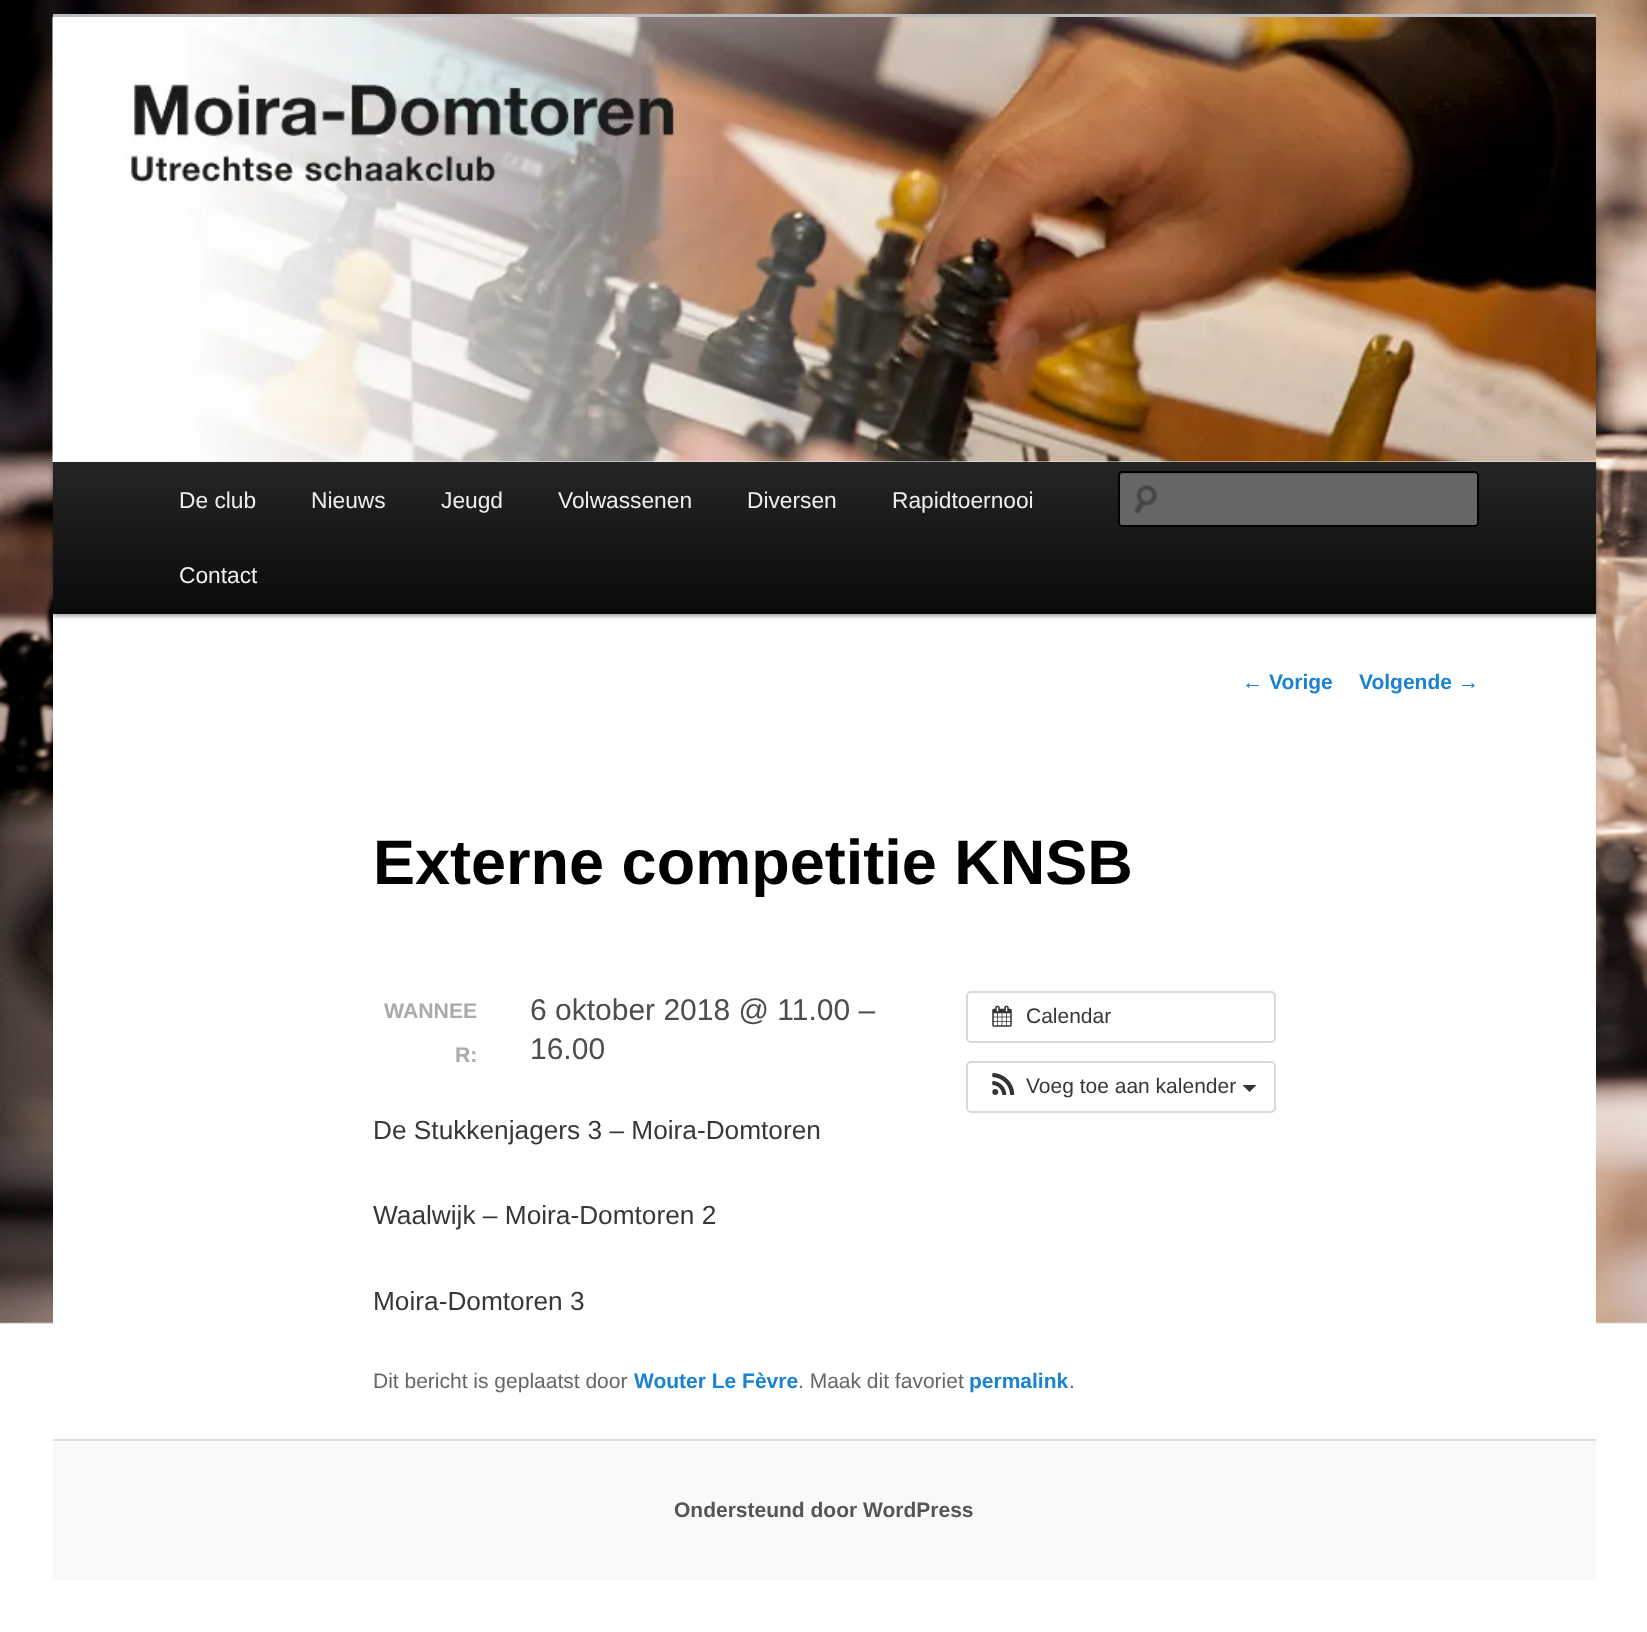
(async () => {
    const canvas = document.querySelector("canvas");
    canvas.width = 1647;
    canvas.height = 1632;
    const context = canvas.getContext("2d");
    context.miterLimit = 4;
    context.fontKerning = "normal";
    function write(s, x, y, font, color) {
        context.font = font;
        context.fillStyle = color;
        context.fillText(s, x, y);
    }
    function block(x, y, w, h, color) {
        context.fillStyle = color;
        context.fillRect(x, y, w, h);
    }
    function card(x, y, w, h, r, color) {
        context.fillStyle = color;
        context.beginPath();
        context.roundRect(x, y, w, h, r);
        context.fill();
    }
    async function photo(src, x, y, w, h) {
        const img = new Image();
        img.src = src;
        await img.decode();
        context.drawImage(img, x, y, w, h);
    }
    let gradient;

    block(0, 0, 1647, 1632, "rgb(255, 255, 255)");
    await photo("media/1.png", 0, 0, 1647, 1324);
    block(53, 461, 1543, 863, "rgb(255, 255, 255)");
    block(53, 14, 1543, 3, "rgb(187, 187, 187)");
    context.fillStyle = "rgba(0, 0, 0, 0.4)";
    context.filter = "blur(2px)";
    context.beginPath();
    context.rect(53, 464, 1543, 152);
    context.fill();
    context.filter = "none";
    await photo("media/2.png", 52, 17, 1544, 445);
    gradient = context.createLinearGradient(824, 462, 824, 614);
    gradient.addColorStop(0, "rgb(37, 37, 37)");
    gradient.addColorStop(1, "rgb(10, 10, 10)");
    context.fillStyle = gradient;
    context.fillRect(53, 462, 1543, 152);
    write("De club", 179, 508, "22.75px Liberation Sans", "rgb(238, 238, 238)");
    write("Nieuws", 311, 508, "22.75px Liberation Sans", "rgb(238, 238, 238)");
    write("Jeugd", 441, 508, "22.75px Liberation Sans", "rgb(238, 238, 238)");
    write("Volwassenen", 558, 508, "22.75px Liberation Sans", "rgb(238, 238, 238)");
    write("Diversen", 747, 508, "22.75px Liberation Sans", "rgb(238, 238, 238)");
    write("Rapidtoernooi", 892, 508, "22.75px Liberation Sans", "rgb(238, 238, 238)");
    write("Contact", 179, 583, "22.75px Liberation Sans", "rgb(238, 238, 238)");
    card(1118, 471, 361, 56, 4, "rgb(102, 102, 102)");
    await photo("media/3.png", 1134, 485, 23, 29);
    context.fillStyle = "rgb(92, 92, 92)";
    context.beginPath();
    context.moveTo(1122, 474);
    context.lineTo(1475, 474);
    context.bezierCurveTo(1476, 474, 1477, 475, 1477, 476);
    context.bezierCurveTo(1477, 475, 1477, 473, 1475, 473);
    context.lineTo(1122, 473);
    context.bezierCurveTo(1120, 473, 1120, 475, 1120, 476);
    context.bezierCurveTo(1120, 475, 1121, 474, 1122, 474);
    context.closePath();
    context.fill();
    context.beginPath();
    context.roundRect(1119, 472, 359, 54, 3);
    context.strokeStyle = "rgb(0, 0, 0)";
    context.lineWidth = 2;
    context.stroke();
    write("←", 1242, 689, "21px Liberation Sans", "rgb(25, 130, 209)");
    write("Vorige", 1269, 689, "bold 21px Liberation Sans", "rgb(25, 130, 209)");
    write("Volgende", 1359, 689, "bold 21px Liberation Sans", "rgb(25, 130, 209)");
    write("→", 1458, 689, "21px Liberation Sans", "rgb(25, 130, 209)");
    write("Externe competitie KNSB", 373, 884, "bold 63px Liberation Sans", "rgb(0, 0, 0)");
    write("WANNEE", 384, 1018, "bold 21.25px Liberation Sans", "rgb(170, 170, 170)");
    write("R:", 455, 1062, "bold 21.25px Liberation Sans", "rgb(170, 170, 170)");
    write("6 oktober 2018 @ 11.00 –", 530, 1020, "30px Liberation Sans", "rgb(77, 77, 77)");
    write("16.00", 530, 1059, "30px Liberation Sans", "rgb(77, 77, 77)");
    context.beginPath();
    context.roundRect(967, 992, 308, 50, 4);
    context.strokeStyle = "rgb(217, 217, 217)";
    context.stroke();
    await photo("media/4.png", 992, 1005, 20, 22);
    write("Calendar", 1026, 1023, "21px Liberation Sans", "rgb(55, 55, 55)");
    context.beginPath();
    context.roundRect(967, 1062, 308, 50, 4);
    context.stroke();
    await photo("media/5.png", 992, 1073, 23, 22);
    write("Voeg toe aan kalender", 1026, 1093, "21px Liberation Sans", "rgb(55, 55, 55)");
    context.fillStyle = "rgb(51, 51, 51)";
    context.beginPath();
    context.moveTo(1242.5, 1085);
    context.lineTo(1256.5, 1085);
    context.lineTo(1249.5, 1092);
    context.closePath();
    context.fill();
    write("De Stukkenjagers 3 – Moira-Domtoren", 373, 1139, "26.25px Liberation Sans", "rgb(55, 55, 55)");
    write("Waalwijk – Moira-Domtoren 2", 373, 1224, "26.25px Liberation Sans", "rgb(55, 55, 55)");
    write("Moira-Domtoren 3", 373, 1310, "26.25px Liberation Sans", "rgb(55, 55, 55)");
    write("Dit bericht is geplaatst door", 373, 1388, "21px Liberation Sans", "rgb(102, 102, 102)");
    write("Wouter Le Fèvre", 634, 1388, "bold 21px Liberation Sans", "rgb(25, 130, 209)");
    write(". Maak dit favoriet", 798, 1388, "21px Liberation Sans", "rgb(102, 102, 102)");
    write("permalink", 969, 1388, "bold 21px Liberation Sans", "rgb(25, 130, 209)");
    write(".", 1069, 1388, "21px Liberation Sans", "rgb(102, 102, 102)");
    block(53, 1441, 1543, 139, "rgb(249, 249, 249)");
    block(53, 1439, 1543, 2, "rgb(221, 221, 221)");
    write("Ondersteund door WordPress", 674, 1517, "bold 21px Liberation Sans", "rgb(85, 85, 85)");
})();
